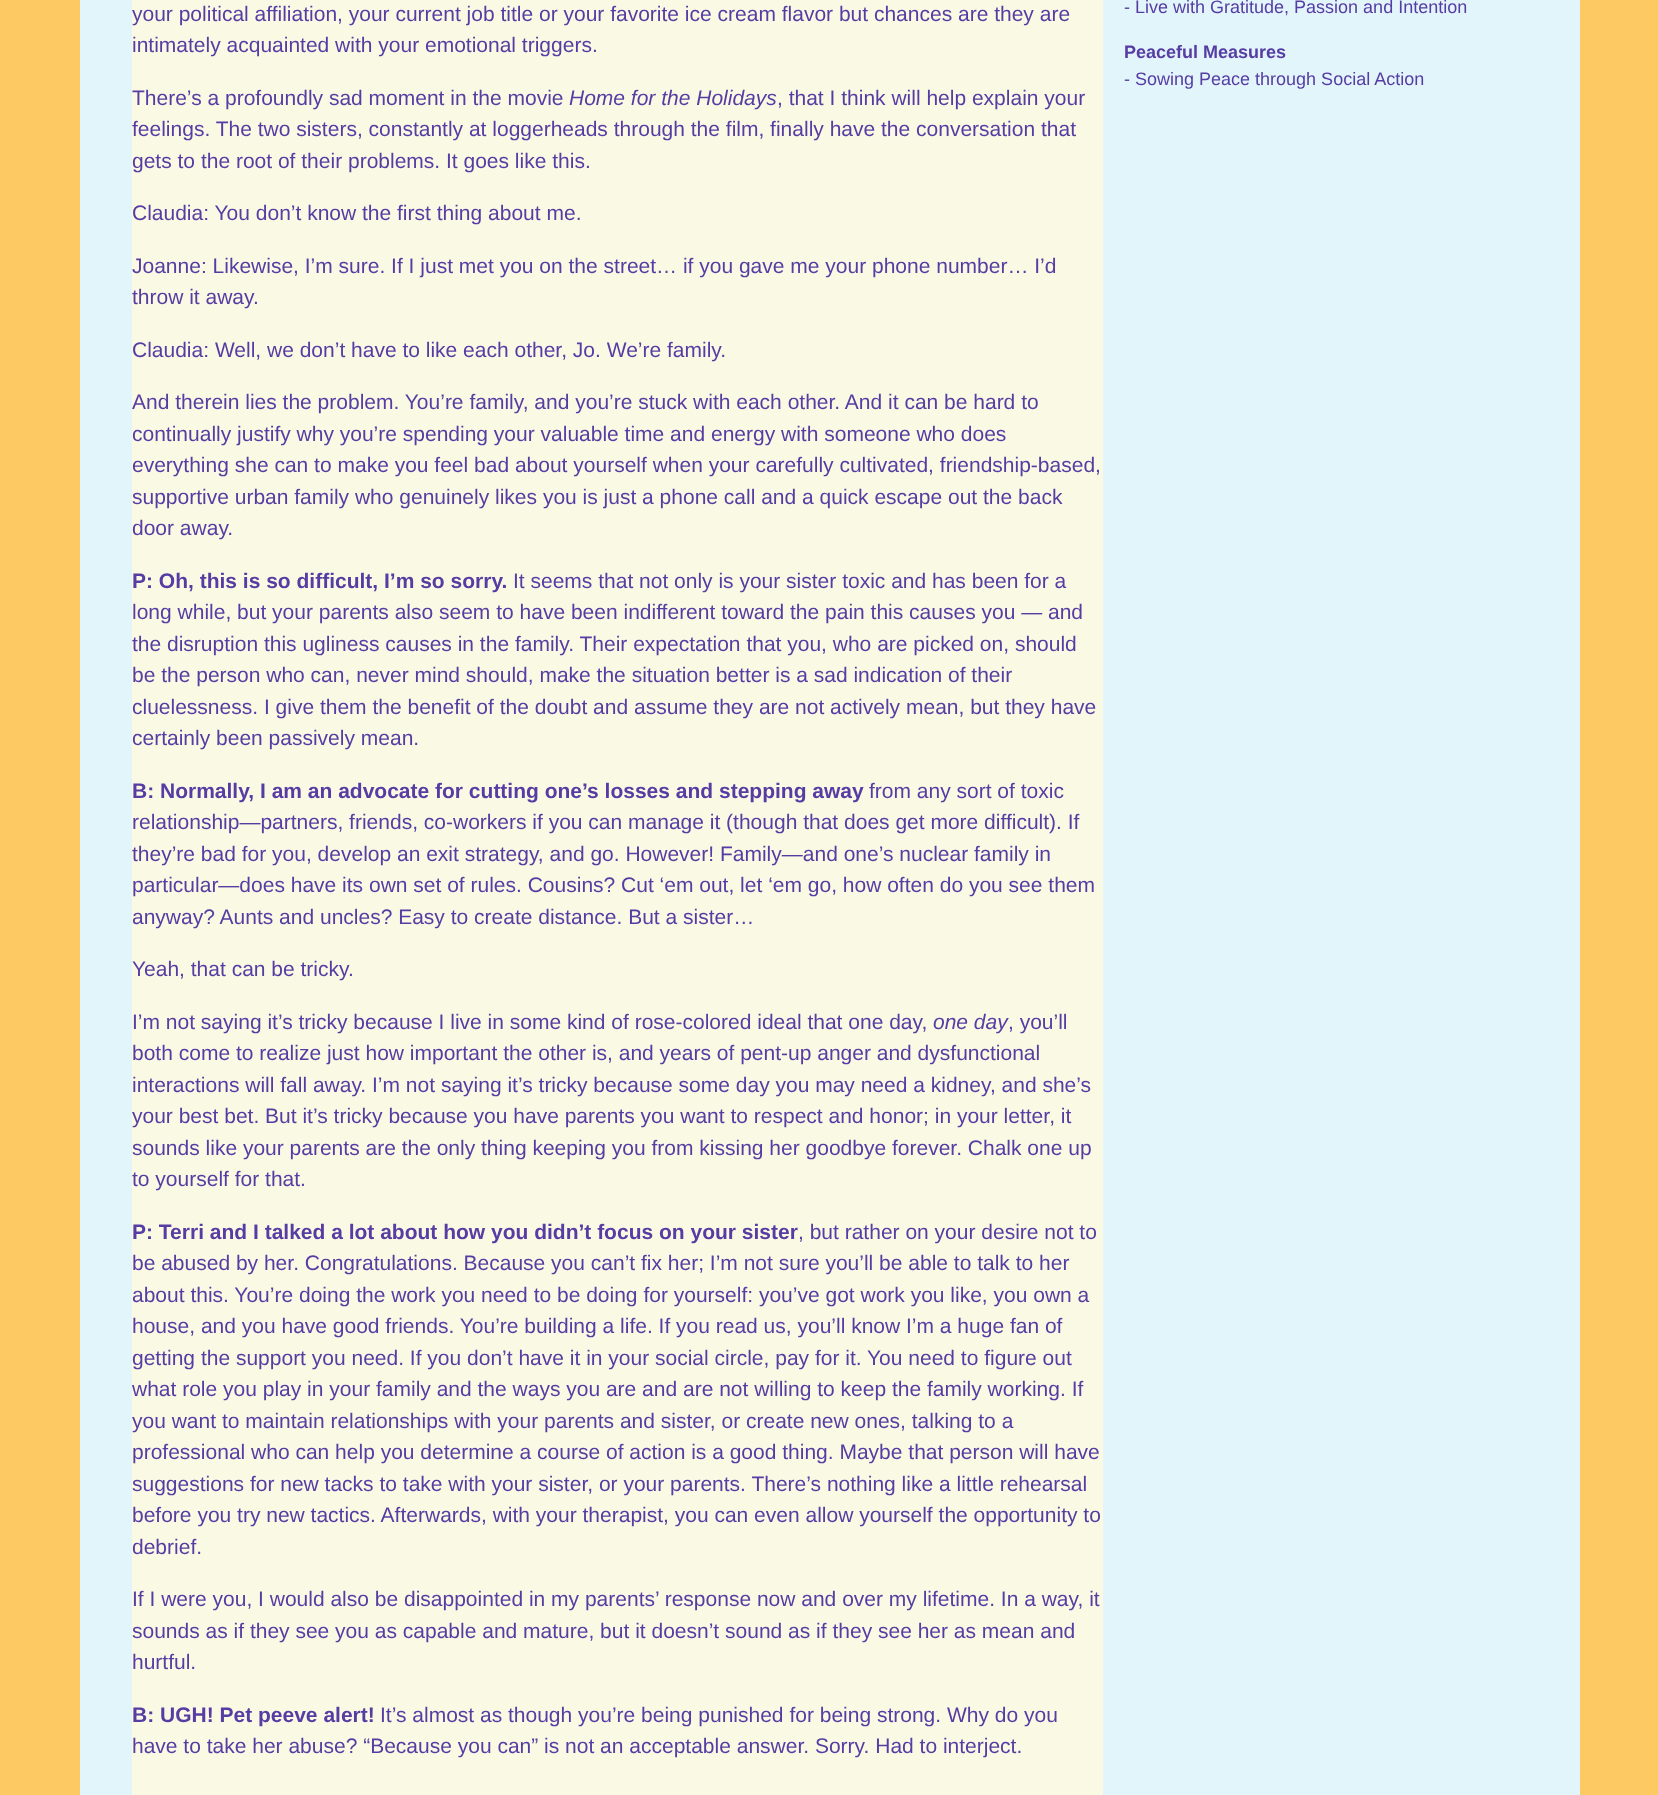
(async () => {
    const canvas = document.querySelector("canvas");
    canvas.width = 1658;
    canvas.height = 1795;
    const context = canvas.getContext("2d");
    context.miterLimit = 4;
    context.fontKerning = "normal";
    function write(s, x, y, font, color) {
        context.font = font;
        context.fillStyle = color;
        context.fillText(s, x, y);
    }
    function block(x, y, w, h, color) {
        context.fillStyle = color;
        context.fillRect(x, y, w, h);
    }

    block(0, 0, 1658, 1795, "rgb(253, 201, 99)");
    block(80, 0, 1500, 1795, "rgb(226, 245, 251)");
    block(132, 0, 971, 1795, "rgb(250, 249, 228)");
    write("your political affiliation, your current job title or your favorite ice cream flavor but chances are they are", 132, 21, "21px Liberation Sans", "rgb(87, 61, 163)");
    write("intimately acquainted with your emotional triggers.", 132, 52, "21px Liberation Sans", "rgb(87, 61, 163)");
    write("There’s a profoundly sad moment in the movie", 132, 105, "21px Liberation Sans", "rgb(87, 61, 163)");
    write("Home for the Holidays", 569, 105, "italic 21px Liberation Sans", "rgb(87, 61, 163)");
    write(", that I think will help explain your", 777, 105, "21px Liberation Sans", "rgb(87, 61, 163)");
    write("feelings. The two sisters, constantly at loggerheads through the film, finally have the conversation that", 132, 136, "21px Liberation Sans", "rgb(87, 61, 163)");
    write("gets to the root of their problems. It goes like this.", 132, 168, "21px Liberation Sans", "rgb(87, 61, 163)");
    write("Claudia: You don’t know the first thing about me.", 132, 220, "21px Liberation Sans", "rgb(87, 61, 163)");
    write("Joanne: Likewise, I’m sure. If I just met you on the street… if you gave me your phone number… I’d", 132, 273, "21px Liberation Sans", "rgb(87, 61, 163)");
    write("throw it away.", 132, 304, "21px Liberation Sans", "rgb(87, 61, 163)");
    write("Claudia: Well, we don’t have to like each other, Jo. We’re family.", 132, 357, "21px Liberation Sans", "rgb(87, 61, 163)");
    write("And therein lies the problem. You’re family, and you’re stuck with each other. And it can be hard to", 132, 409, "21px Liberation Sans", "rgb(87, 61, 163)");
    write("continually justify why you’re spending your valuable time and energy with someone who does", 132, 441, "21px Liberation Sans", "rgb(87, 61, 163)");
    write("everything she can to make you feel bad about yourself when your carefully cultivated, friendship-based,", 132, 472, "21px Liberation Sans", "rgb(87, 61, 163)");
    write("supportive urban family who genuinely likes you is just a phone call and a quick escape out the back", 132, 504, "21px Liberation Sans", "rgb(87, 61, 163)");
    write("door away.", 132, 535, "21px Liberation Sans", "rgb(87, 61, 163)");
    write("P: Oh, this is so difficult, I’m so sorry.", 132, 588, "bold 21px Liberation Sans", "rgb(87, 61, 163)");
    write("It seems that not only is your sister toxic and has been for a", 513, 588, "21px Liberation Sans", "rgb(87, 61, 163)");
    write("long while, but your parents also seem to have been indifferent toward the pain this causes you — and", 132, 619, "21px Liberation Sans", "rgb(87, 61, 163)");
    write("the disruption this ugliness causes in the family. Their expectation that you, who are picked on, should", 132, 651, "21px Liberation Sans", "rgb(87, 61, 163)");
    write("be the person who can, never mind should, make the situation better is a sad indication of their", 132, 682, "21px Liberation Sans", "rgb(87, 61, 163)");
    write("cluelessness. I give them the benefit of the doubt and assume they are not actively mean, but they have", 132, 714, "21px Liberation Sans", "rgb(87, 61, 163)");
    write("certainly been passively mean.", 132, 745, "21px Liberation Sans", "rgb(87, 61, 163)");
    write("B: Normally, I am an advocate for cutting one’s losses and stepping away", 132, 798, "bold 21px Liberation Sans", "rgb(87, 61, 163)");
    write("from any sort of toxic", 869, 798, "21px Liberation Sans", "rgb(87, 61, 163)");
    write("relationship—partners, friends, co-workers if you can manage it (though that does get more difficult). If", 132, 829, "21px Liberation Sans", "rgb(87, 61, 163)");
    write("they’re bad for you, develop an exit strategy, and go. However! Family—and one’s nuclear family in", 132, 861, "21px Liberation Sans", "rgb(87, 61, 163)");
    write("particular—does have its own set of rules. Cousins? Cut ‘em out, let ‘em go, how often do you see them", 132, 892, "21px Liberation Sans", "rgb(87, 61, 163)");
    write("anyway? Aunts and uncles? Easy to create distance. But a sister…", 132, 924, "21px Liberation Sans", "rgb(87, 61, 163)");
    write("Yeah, that can be tricky.", 132, 976, "21px Liberation Sans", "rgb(87, 61, 163)");
    write("I’m not saying it’s tricky because I live in some kind of rose-colored ideal that one day,", 132, 1029, "21px Liberation Sans", "rgb(87, 61, 163)");
    write("one day", 933, 1029, "italic 21px Liberation Sans", "rgb(87, 61, 163)");
    write(", you’ll", 1008, 1029, "21px Liberation Sans", "rgb(87, 61, 163)");
    write("both come to realize just how important the other is, and years of pent-up anger and dysfunctional", 132, 1060, "21px Liberation Sans", "rgb(87, 61, 163)");
    write("interactions will fall away. I’m not saying it’s tricky because some day you may need a kidney, and she’s", 132, 1092, "21px Liberation Sans", "rgb(87, 61, 163)");
    write("your best bet. But it’s tricky because you have parents you want to respect and honor; in your letter, it", 132, 1123, "21px Liberation Sans", "rgb(87, 61, 163)");
    write("sounds like your parents are the only thing keeping you from kissing her goodbye forever. Chalk one up", 132, 1155, "21px Liberation Sans", "rgb(87, 61, 163)");
    write("to yourself for that.", 132, 1186, "21px Liberation Sans", "rgb(87, 61, 163)");
    write("P: Terri and I talked a lot about how you didn’t focus on your sister", 132, 1239, "bold 21px Liberation Sans", "rgb(87, 61, 163)");
    write(", but rather on your desire not to", 798, 1239, "21px Liberation Sans", "rgb(87, 61, 163)");
    write("be abused by her. Congratulations. Because you can’t fix her; I’m not sure you’ll be able to talk to her", 132, 1270, "21px Liberation Sans", "rgb(87, 61, 163)");
    write("about this. You’re doing the work you need to be doing for yourself: you’ve got work you like, you own a", 132, 1302, "21px Liberation Sans", "rgb(87, 61, 163)");
    write("house, and you have good friends. You’re building a life. If you read us, you’ll know I’m a huge fan of", 132, 1333, "21px Liberation Sans", "rgb(87, 61, 163)");
    write("getting the support you need. If you don’t have it in your social circle, pay for it. You need to figure out", 132, 1365, "21px Liberation Sans", "rgb(87, 61, 163)");
    write("what role you play in your family and the ways you are and are not willing to keep the family working. If", 132, 1396, "21px Liberation Sans", "rgb(87, 61, 163)");
    write("you want to maintain relationships with your parents and sister, or create new ones, talking to a", 132, 1428, "21px Liberation Sans", "rgb(87, 61, 163)");
    write("professional who can help you determine a course of action is a good thing. Maybe that person will have", 132, 1459, "21px Liberation Sans", "rgb(87, 61, 163)");
    write("suggestions for new tacks to take with your sister, or your parents. There’s nothing like a little rehearsal", 132, 1491, "21px Liberation Sans", "rgb(87, 61, 163)");
    write("before you try new tactics. Afterwards, with your therapist, you can even allow yourself the opportunity to", 132, 1522, "21px Liberation Sans", "rgb(87, 61, 163)");
    write("debrief.", 132, 1554, "21px Liberation Sans", "rgb(87, 61, 163)");
    write("If I were you, I would also be disappointed in my parents’ response now and over my lifetime. In a way, it", 132, 1606, "21px Liberation Sans", "rgb(87, 61, 163)");
    write("sounds as if they see you as capable and mature, but it doesn’t sound as if they see her as mean and", 132, 1638, "21px Liberation Sans", "rgb(87, 61, 163)");
    write("hurtful.", 132, 1669, "21px Liberation Sans", "rgb(87, 61, 163)");
    write("B: UGH! Pet peeve alert!", 132, 1722, "bold 21px Liberation Sans", "rgb(87, 61, 163)");
    write("It’s almost as though you’re being punished for being strong. Why do you", 380, 1722, "21px Liberation Sans", "rgb(87, 61, 163)");
    write("have to take her abuse? “Because you can” is not an acceptable answer. Sorry. Had to interject.", 132, 1753, "21px Liberation Sans", "rgb(87, 61, 163)");
    write("- Live with Gratitude, Passion and Intention", 1124, 13, "18px Liberation Sans", "rgb(87, 61, 163)");
    write("Peaceful Measures", 1124, 58, "bold 18px Liberation Sans", "rgb(87, 61, 163)");
    write("- Sowing Peace through Social Action", 1124, 85, "18px Liberation Sans", "rgb(87, 61, 163)");
})();
